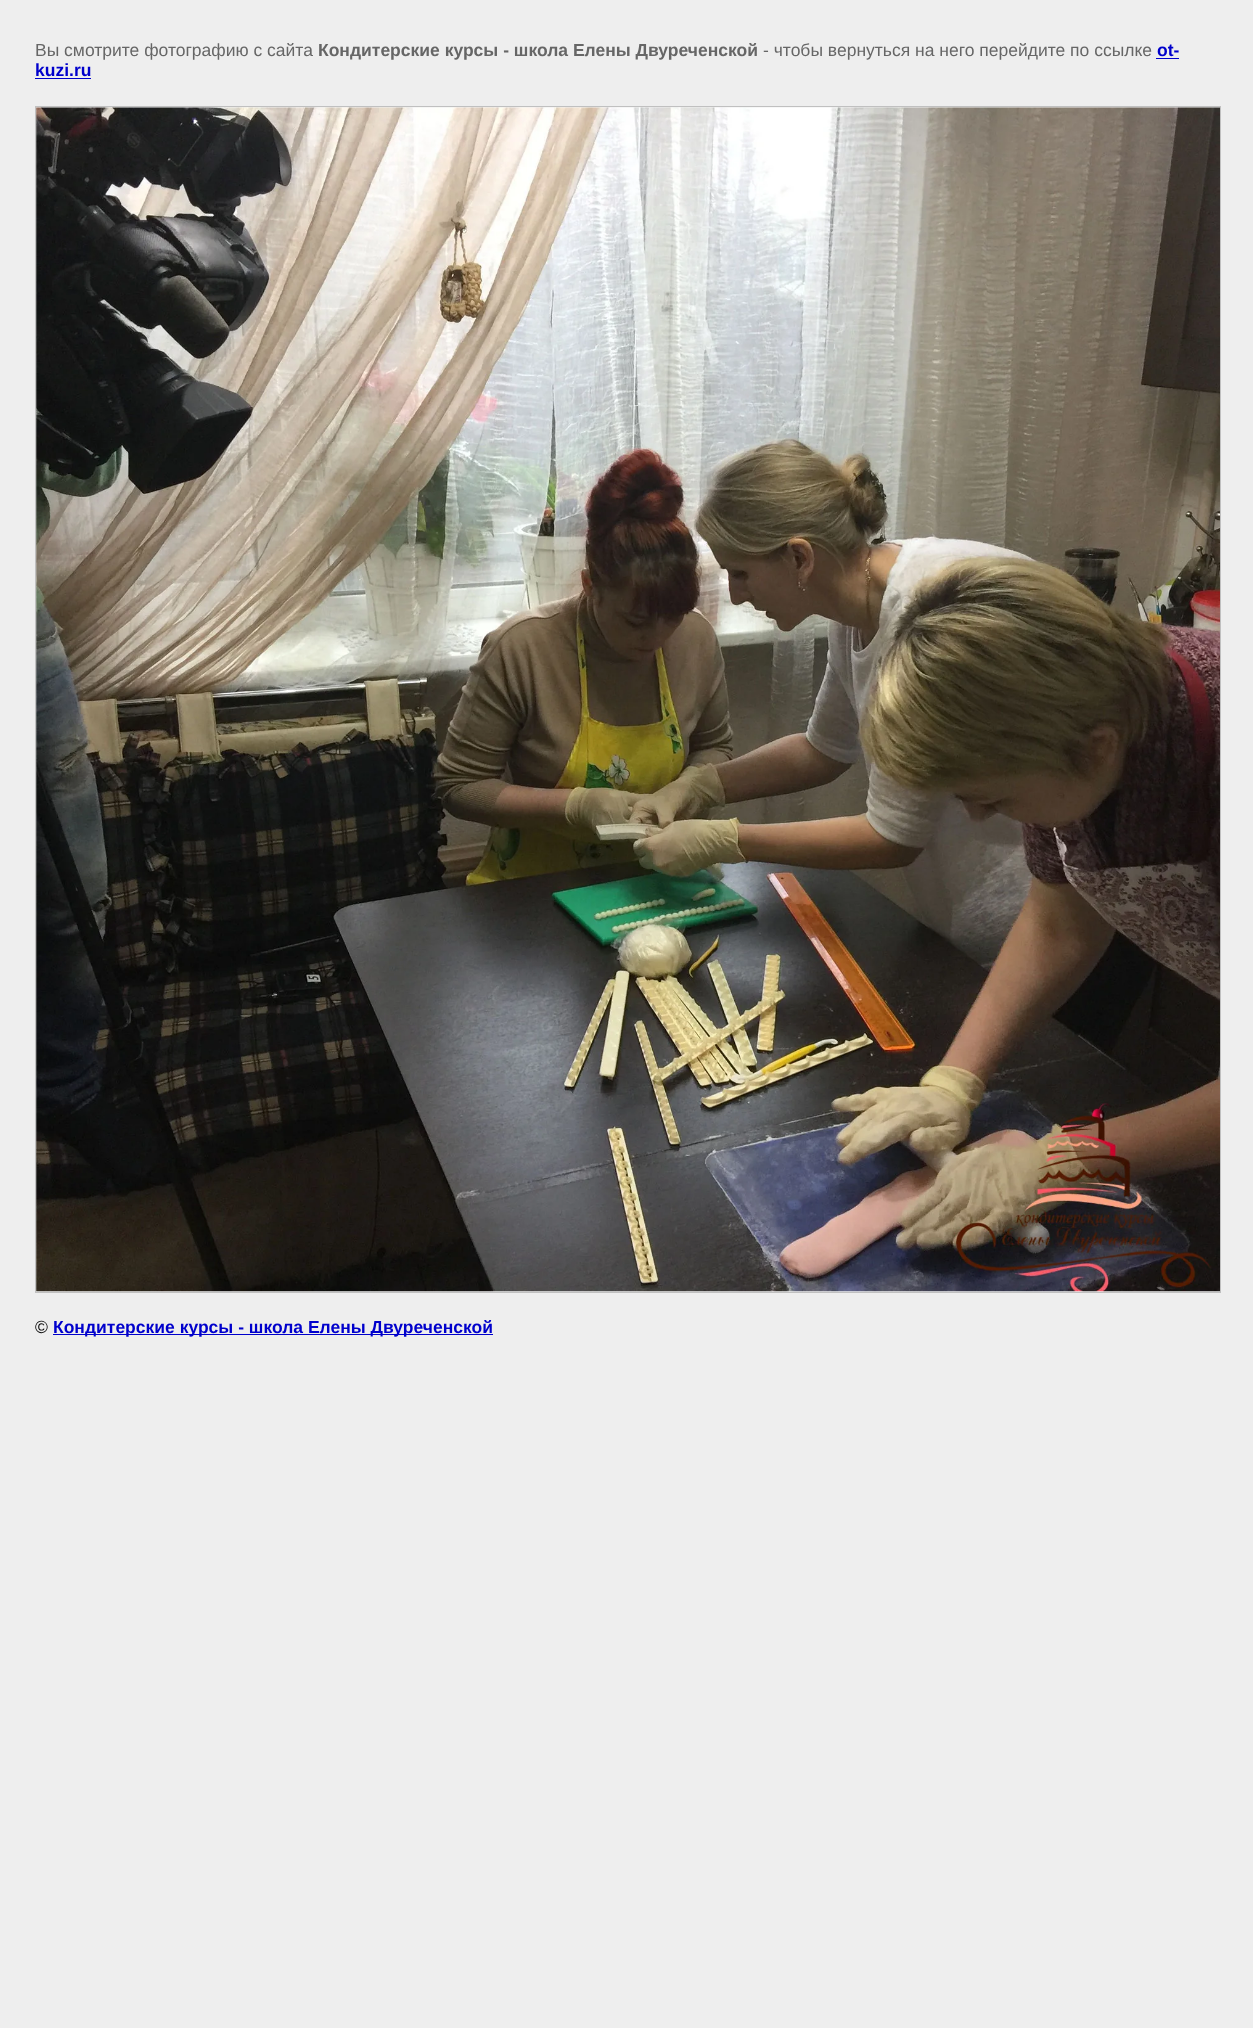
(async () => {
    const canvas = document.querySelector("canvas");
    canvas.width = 1253;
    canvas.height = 2028;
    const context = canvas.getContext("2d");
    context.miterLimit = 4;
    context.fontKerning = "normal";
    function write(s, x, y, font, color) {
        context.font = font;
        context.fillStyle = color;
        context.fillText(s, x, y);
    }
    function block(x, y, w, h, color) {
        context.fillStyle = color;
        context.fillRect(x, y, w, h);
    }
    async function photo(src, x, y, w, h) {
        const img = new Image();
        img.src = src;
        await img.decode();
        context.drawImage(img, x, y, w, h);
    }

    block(0, 0, 1253, 2028, "rgb(238, 238, 238)");
    write("Вы смотрите фотографию с сайта", 35, 56, "17.5px Liberation Sans", "rgb(102, 102, 102)");
    write("Кондитерские курсы - школа Елены Двуреченской", 318, 56, "bold 17.5px Liberation Sans", "rgb(102, 102, 102)");
    write("- чтобы вернуться на него перейдите по ссылке", 763, 56, "17.5px Liberation Sans", "rgb(102, 102, 102)");
    write("ot-", 1157, 56, "bold 17.5px Liberation Sans", "rgb(0, 0, 204)");
    block(1156, 58, 23, 1, "rgb(0, 0, 204)");
    write("kuzi.ru", 35, 76, "bold 17.5px Liberation Sans", "rgb(0, 0, 204)");
    block(35, 78, 56, 1, "rgb(0, 0, 204)");
    context.strokeStyle = "rgb(192, 192, 192)";
    context.strokeRect(35.5, 106.5, 1185, 1186);
    await photo("media/1.png", 36, 107, 1184, 1185);
    write("©", 35, 1333, "17.5px Liberation Sans", "rgb(0, 0, 0)");
    block(53, 1334, 440, 1, "rgb(0, 0, 204)");
    write("Кондитерские курсы - школа Елены Двуреченской", 53, 1333, "bold 17.5px Liberation Sans", "rgb(0, 0, 204)");
})();
